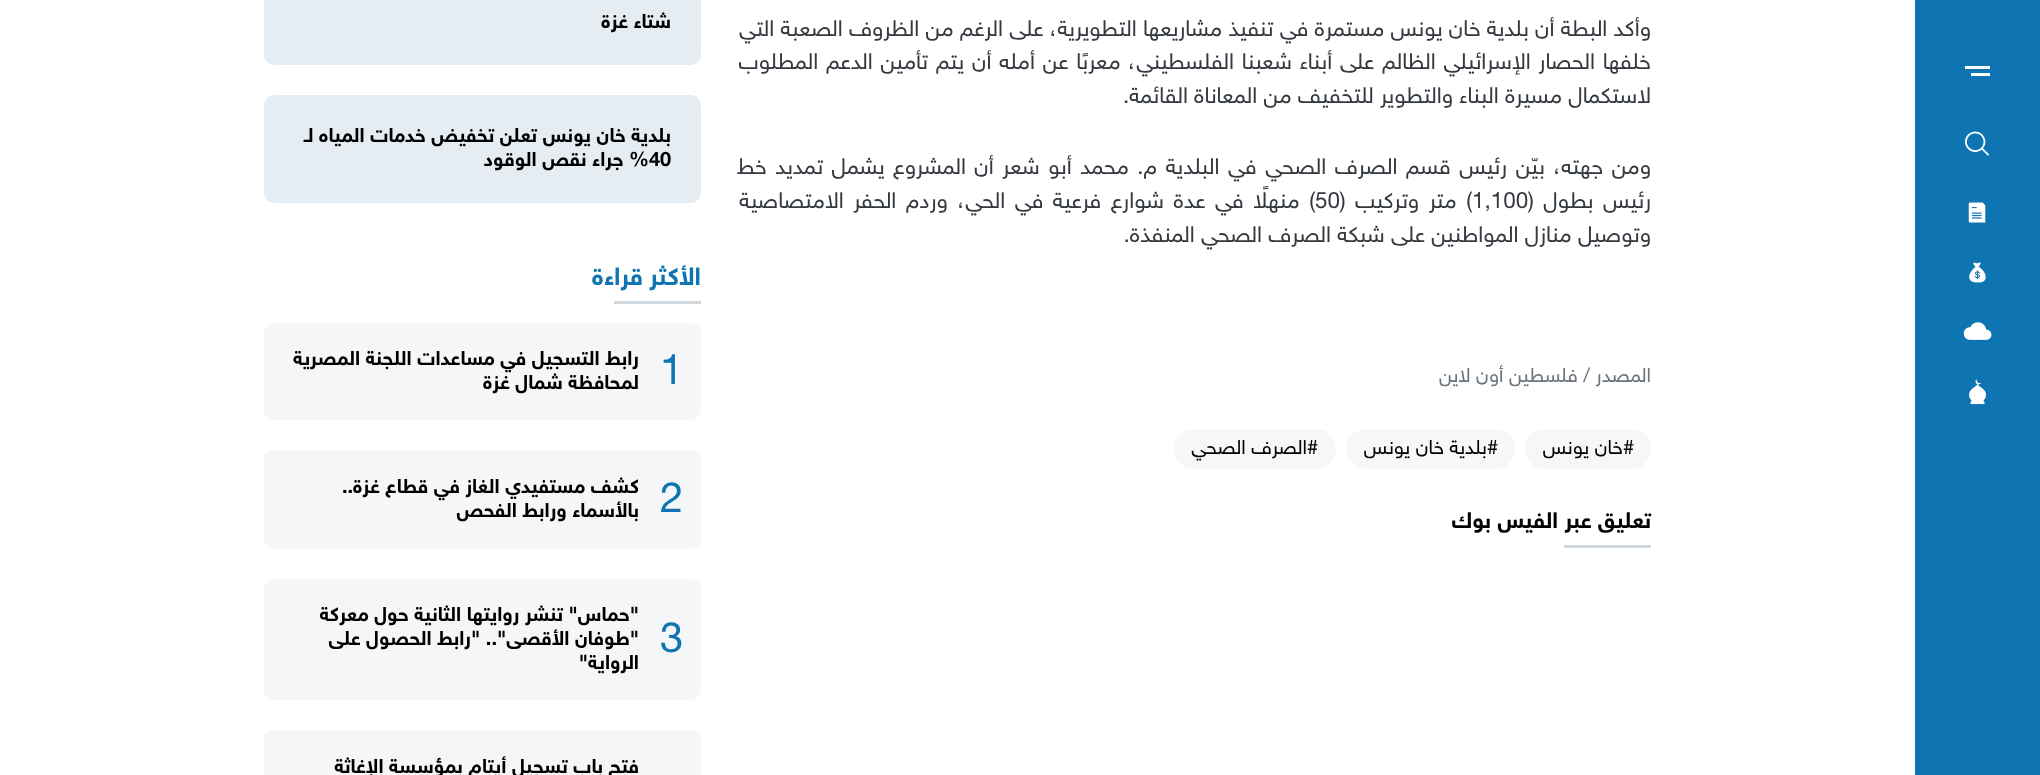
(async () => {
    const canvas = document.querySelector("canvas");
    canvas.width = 2040;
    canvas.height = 775;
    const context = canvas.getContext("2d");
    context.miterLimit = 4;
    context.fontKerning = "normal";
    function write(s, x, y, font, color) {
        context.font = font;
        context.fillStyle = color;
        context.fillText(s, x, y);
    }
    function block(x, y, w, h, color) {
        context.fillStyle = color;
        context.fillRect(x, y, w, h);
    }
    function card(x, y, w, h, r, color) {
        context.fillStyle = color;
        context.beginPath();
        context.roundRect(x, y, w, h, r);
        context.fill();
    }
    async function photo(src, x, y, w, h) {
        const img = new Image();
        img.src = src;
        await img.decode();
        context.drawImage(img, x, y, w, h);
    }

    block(0, 0, 2040, 775, "rgb(255, 255, 255)");
    block(1915, 0, 125, 775, "rgb(14, 116, 178)");
    block(1965, 66, 25, 3, "rgb(255, 255, 255)");
    block(1971, 73, 19, 3, "rgb(255, 255, 255)");
    await photo("media/1.png", 1965, 131, 24, 25);
    await photo("media/2.png", 1968, 202, 18, 21);
    await photo("media/3.png", 1969, 262, 17, 21);
    await photo("media/4.png", 1963, 322, 29, 18);
    await photo("media/5.png", 1969, 379, 17, 26);
    context.direction = "rtl";
    write("وأكد البطة أن بلدية خان يونس مستمرة في تنفيذ مشاريعها التطويرية، على الرغم من الظروف الصعبة التي", 1651, 36, "22.5px 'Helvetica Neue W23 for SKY'", "rgb(52, 58, 64)");
    context.wordSpacing = "1.6px";
    write("خلفها الحصار الإسرائيلي الظالم على أبناء شعبنا الفلسطيني، معربًا عن أمله أن يتم تأمين الدعم المطلوب", 1651, 69, "22.5px 'Helvetica Neue W23 for SKY'", "rgb(52, 58, 64)");
    context.wordSpacing = "0px";
    write("لاستكمال مسيرة البناء والتطوير للتخفيف من المعاناة القائمة.", 1651, 103, "22.5px 'Helvetica Neue W23 for SKY'", "rgb(52, 58, 64)");
    context.wordSpacing = "2.25px";
    write("ومن جهته، بيّن رئيس قسم الصرف الصحي في البلدية م. محمد أبو شعر أن المشروع يشمل تمديد خط", 1651, 174, "22.5px 'Helvetica Neue W23 for SKY'", "rgb(52, 58, 64)");
    context.wordSpacing = "3.25px";
    write("رئيس بطول (", 1651, 208, "22.5px 'Helvetica Neue W23 for SKY'", "rgb(52, 58, 64)");
    context.wordSpacing = "0px";
    context.direction = "ltr";
    write("1,100", 1472, 208, "22.5px 'Helvetica Neue W23 for SKY'", "rgb(52, 58, 64)");
    context.wordSpacing = "3.25px";
    context.direction = "rtl";
    write(") متر وتركيب (", 1472, 208, "22.5px 'Helvetica Neue W23 for SKY'", "rgb(52, 58, 64)");
    context.wordSpacing = "0px";
    context.direction = "ltr";
    write("50", 1315, 208, "22.5px 'Helvetica Neue W23 for SKY'", "rgb(52, 58, 64)");
    context.wordSpacing = "3.25px";
    context.direction = "rtl";
    write(") منهلًا في عدة شوارع فرعية في الحي، وردم الحفر الامتصاصية", 1315, 208, "22.5px 'Helvetica Neue W23 for SKY'", "rgb(52, 58, 64)");
    context.wordSpacing = "0px";
    write("وتوصيل منازل المواطنين على شبكة الصرف الصحي المنفذة.", 1651, 242, "22.5px 'Helvetica Neue W23 for SKY'", "rgb(52, 58, 64)");
    write("المصدر / فلسطين أون لاين", 1651, 382, "20px 'Helvetica Neue W23 for SKY'", "rgb(108, 117, 125)");
    card(1525, 429, 126, 40, 20, "rgb(247, 247, 247)");
    write("#خان يونس", 1634, 454, "20px 'Helvetica Neue W23 for SKY'", "rgb(0, 0, 0)");
    card(1346, 429, 169, 40, 20, "rgb(247, 247, 247)");
    write("#بلدية خان يونس", 1498, 454, "20px 'Helvetica Neue W23 for SKY'", "rgb(0, 0, 0)");
    card(1174, 429, 162, 40, 20, "rgb(247, 247, 247)");
    write("#الصرف الصحي", 1318, 454, "20px 'Helvetica Neue W23 for SKY'", "rgb(0, 0, 0)");
    write("تعليق عبر", 1651, 528, "bold 22.5px 'Helvetica Neue W23 for SKY'", "rgb(0, 0, 0)");
    write("الفيس بوك", 1558, 528, "bold 22.5px 'Helvetica Neue W23 for SKY'", "rgb(0, 0, 0)");
    block(1564, 545, 87, 3, "rgb(208, 216, 221)");
    card(264, -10, 437, 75, 10, "rgb(230, 237, 242)");
    write("شتاء غزة", 671, 28, "bold 20px 'Helvetica Neue W23 for SKY'", "rgb(0, 0, 0)");
    card(264, 95, 437, 108, 10, "rgb(230, 237, 242)");
    write("بلدية خان يونس تعلن تخفيض خدمات المياه لـ", 671, 142, "bold 20px 'Helvetica Neue W23 for SKY'", "rgb(0, 0, 0)");
    context.direction = "ltr";
    write("40", 649, 166, "bold 20px 'Helvetica Neue W23 for SKY'", "rgb(0, 0, 0)");
    context.direction = "rtl";
    write("% جراء نقص الوقود", 649, 166, "bold 20px 'Helvetica Neue W23 for SKY'", "rgb(0, 0, 0)");
    write("الأكثر", 701, 285, "bold 25px 'Helvetica Neue W23 for SKY'", "rgb(14, 116, 178)");
    write("قراءة", 643, 285, "bold 25px 'Helvetica Neue W23 for SKY'", "rgb(14, 116, 178)");
    block(614, 301, 87, 3, "rgb(208, 216, 221)");
    card(264, 323, 437, 97, 10, "rgb(245, 246, 248)");
    context.direction = "ltr";
    write("1", 660, 384, "42px 'Helvetica Neue W23 for SKY'", "rgb(14, 116, 178)");
    context.direction = "rtl";
    write("رابط التسجيل في مساعدات اللجنة المصرية", 639, 365, "bold 20px 'Helvetica Neue W23 for SKY'", "rgb(0, 0, 0)");
    write("لمحافظة شمال غزة", 639, 389, "bold 20px 'Helvetica Neue W23 for SKY'", "rgb(0, 0, 0)");
    card(264, 450, 437, 99, 10, "rgb(245, 246, 248)");
    context.direction = "ltr";
    write("2", 660, 512, "42px 'Helvetica Neue W23 for SKY'", "rgb(14, 116, 178)");
    context.direction = "rtl";
    write("كشف مستفيدي الغاز في قطاع غزة..", 639, 493, "bold 20px 'Helvetica Neue W23 for SKY'", "rgb(0, 0, 0)");
    write("بالأسماء ورابط الفحص", 639, 517, "bold 20px 'Helvetica Neue W23 for SKY'", "rgb(0, 0, 0)");
    card(264, 579, 437, 121, 10, "rgb(245, 246, 248)");
    context.direction = "ltr";
    write("3", 660, 652, "42px 'Helvetica Neue W23 for SKY'", "rgb(14, 116, 178)");
    context.direction = "rtl";
    write("\"حماس\" تنشر روايتها الثانية حول معركة", 639, 621, "bold 20px 'Helvetica Neue W23 for SKY'", "rgb(0, 0, 0)");
    write("\"طوفان الأقصى\".. \"رابط الحصول على", 639, 645, "bold 20px 'Helvetica Neue W23 for SKY'", "rgb(0, 0, 0)");
    write("الرواية\"", 639, 669, "bold 20px 'Helvetica Neue W23 for SKY'", "rgb(0, 0, 0)");
    card(264, 730, 437, 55, 10, "rgb(245, 246, 248)");
    write("فتح باب تسجيل أيتام بمؤسسة الإغاثة", 639, 773, "bold 20px 'Helvetica Neue W23 for SKY'", "rgb(0, 0, 0)");
})();
